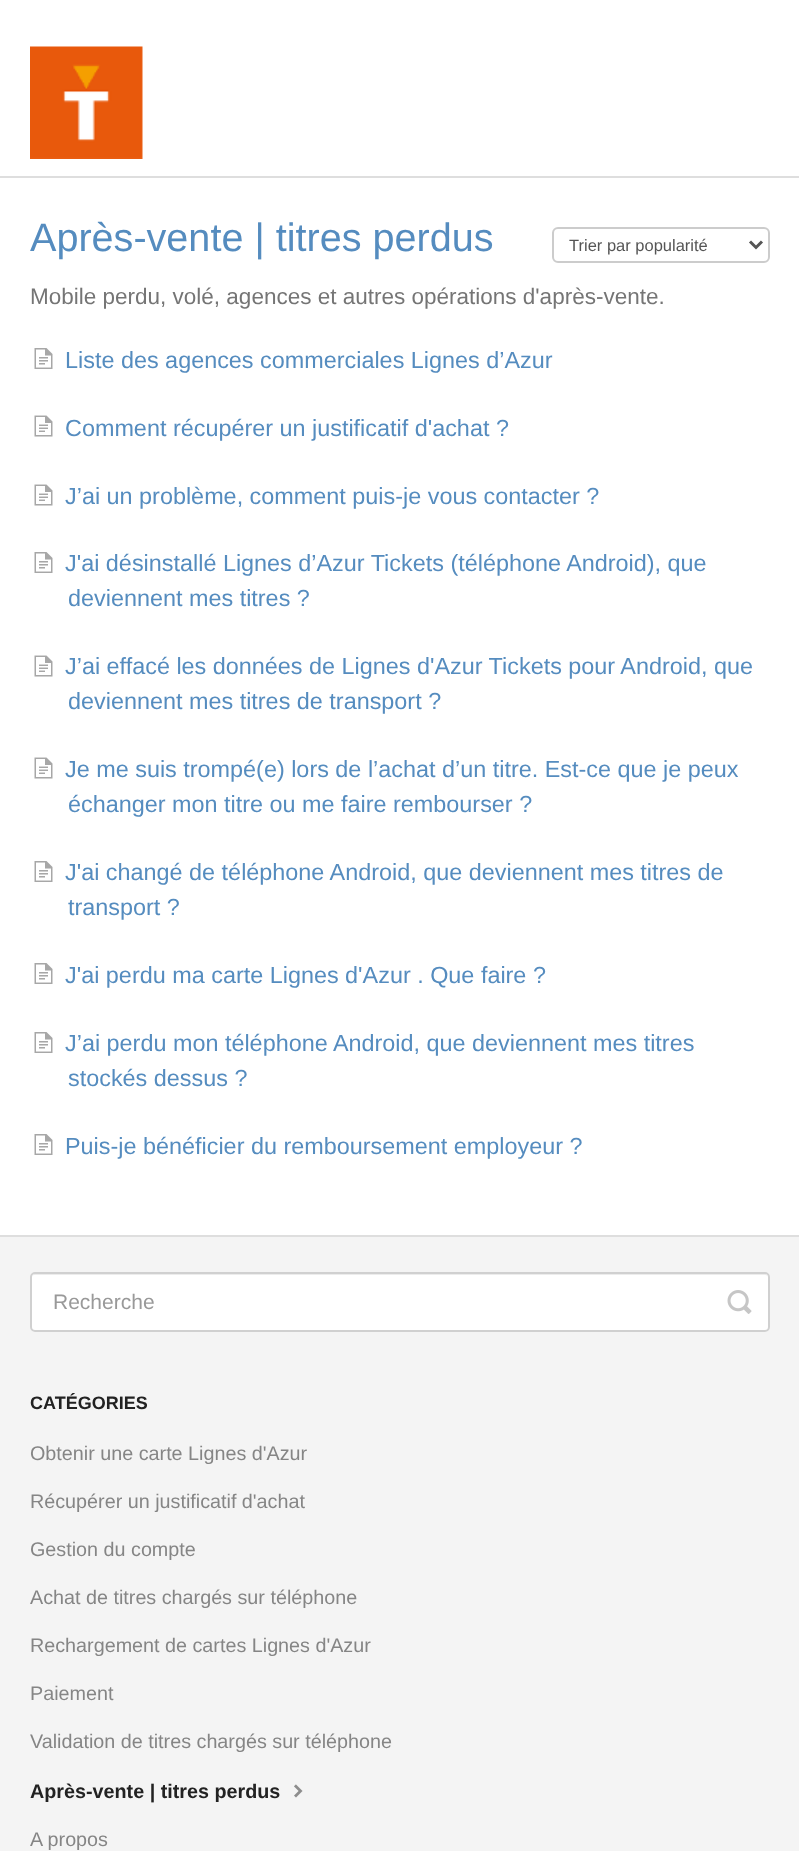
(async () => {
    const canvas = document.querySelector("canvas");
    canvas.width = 799;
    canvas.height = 1851;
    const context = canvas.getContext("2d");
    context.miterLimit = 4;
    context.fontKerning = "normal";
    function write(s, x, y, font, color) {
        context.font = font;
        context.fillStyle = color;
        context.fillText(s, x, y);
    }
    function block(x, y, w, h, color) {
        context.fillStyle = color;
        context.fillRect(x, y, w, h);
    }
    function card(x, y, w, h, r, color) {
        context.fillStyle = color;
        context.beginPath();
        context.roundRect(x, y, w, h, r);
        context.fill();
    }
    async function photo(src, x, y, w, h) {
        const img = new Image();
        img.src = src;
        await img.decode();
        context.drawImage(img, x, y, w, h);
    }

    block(0, 0, 799, 1851, "rgb(244, 244, 244)");
    block(0, 0, 799, 176, "rgb(255, 255, 255)");
    await photo("media/1.png", 30, 46, 113, 113);
    block(0, 178, 799, 1057, "rgb(255, 255, 255)");
    block(0, 176, 799, 2, "rgb(222, 222, 222)");
    block(0, 1235, 799, 2, "rgb(222, 222, 222)");
    write("Après-vente | titres perdus", 30, 251, "39.6px Liberation Sans", "rgb(85, 140, 191)");
    context.beginPath();
    context.roundRect(553, 228, 216, 34, 5);
    context.strokeStyle = "rgb(204, 204, 204)";
    context.lineWidth = 2;
    context.stroke();
    context.beginPath();
    context.moveTo(750, 241.5);
    context.lineTo(756, 247.5);
    context.lineTo(762, 241.5);
    context.strokeStyle = "rgb(85, 85, 85)";
    context.lineWidth = 3;
    context.stroke();
    write("Trier par popularité", 569, 251, "16.5px Liberation Sans", "rgb(85, 85, 85)");
    write("Mobile perdu, volé, agences et autres opérations d'après-vente.", 30, 304, "22.5px Liberation Sans", "rgb(117, 117, 117)");
    await photo("media/2.png", 34, 348, 19, 21);
    write("Liste des agences commerciales Lignes d’Azur", 65, 368, "23.4px Liberation Sans", "rgb(85, 140, 191)");
    await photo("media/3.png", 34, 415, 19, 22);
    write("Comment récupérer un justificatif d'achat ?", 65, 436, "23.4px Liberation Sans", "rgb(85, 140, 191)");
    await photo("media/3.png", 34, 484, 19, 22);
    write("J’ai un problème, comment puis-je vous contacter ?", 65, 504, "23.4px Liberation Sans", "rgb(85, 140, 191)");
    await photo("media/2.png", 34, 552, 19, 21);
    write("J'ai désinstallé Lignes d’Azur Tickets (téléphone Android), que", 65, 571, "23.4px Liberation Sans", "rgb(85, 140, 191)");
    write("deviennent mes titres ?", 68, 606, "23.4px Liberation Sans", "rgb(85, 140, 191)");
    await photo("media/3.png", 34, 655, 19, 22);
    write("J’ai effacé les données de Lignes d'Azur Tickets pour Android, que", 65, 674, "23.4px Liberation Sans", "rgb(85, 140, 191)");
    write("deviennent mes titres de transport ?", 68, 709, "23.4px Liberation Sans", "rgb(85, 140, 191)");
    await photo("media/3.png", 34, 757, 19, 22);
    write("Je me suis trompé(e) lors de l’achat d’un titre. Est-ce que je peux", 65, 777, "23.4px Liberation Sans", "rgb(85, 140, 191)");
    write("échanger mon titre ou me faire rembourser ?", 68, 812, "23.4px Liberation Sans", "rgb(85, 140, 191)");
    await photo("media/2.png", 34, 861, 19, 21);
    write("J'ai changé de téléphone Android, que deviennent mes titres de", 65, 880, "23.4px Liberation Sans", "rgb(85, 140, 191)");
    write("transport ?", 68, 915, "23.4px Liberation Sans", "rgb(85, 140, 191)");
    await photo("media/2.png", 34, 963, 19, 21);
    write("J'ai perdu ma carte Lignes d'Azur . Que faire ?", 65, 983, "23.4px Liberation Sans", "rgb(85, 140, 191)");
    await photo("media/2.png", 34, 1032, 19, 21);
    write("J’ai perdu mon téléphone Android, que deviennent mes titres", 65, 1051, "23.4px Liberation Sans", "rgb(85, 140, 191)");
    write("stockés dessus ?", 68, 1086, "23.4px Liberation Sans", "rgb(85, 140, 191)");
    await photo("media/2.png", 34, 1134, 19, 21);
    write("Puis-je bénéficier du remboursement employeur ?", 65, 1154, "23.4px Liberation Sans", "rgb(85, 140, 191)");
    card(30, 1272, 740, 60, 5, "rgb(255, 255, 255)");
    context.fillStyle = "rgb(236, 236, 236)";
    context.beginPath();
    context.moveTo(34, 1275);
    context.lineTo(765, 1275);
    context.bezierCurveTo(767, 1275, 768, 1276, 768, 1278);
    context.bezierCurveTo(768, 1276, 767, 1274, 765, 1274);
    context.lineTo(35, 1274);
    context.bezierCurveTo(33, 1274, 32, 1276, 32, 1278);
    context.bezierCurveTo(32, 1276, 33, 1275, 34, 1275);
    context.closePath();
    context.fill();
    context.beginPath();
    context.roundRect(31, 1273, 738, 58, 4);
    context.strokeStyle = "rgb(208, 208, 208)";
    context.lineWidth = 2;
    context.stroke();
    write("Recherche", 53, 1309, "21px Liberation Sans", "rgb(153, 153, 153)");
    await photo("media/4.png", 727, 1290, 25, 24);
    write("CATÉGORIES", 30, 1409, "bold 18px Liberation Sans", "rgb(34, 34, 34)");
    write("Obtenir une carte Lignes d'Azur", 30, 1460, "19.75px Liberation Sans", "rgb(133, 133, 133)");
    write("Récupérer un justificatif d'achat", 30, 1508, "19.75px Liberation Sans", "rgb(133, 133, 133)");
    write("Gestion du compte", 30, 1556, "19.75px Liberation Sans", "rgb(133, 133, 133)");
    write("Achat de titres chargés sur téléphone", 30, 1604, "19.75px Liberation Sans", "rgb(133, 133, 133)");
    write("Rechargement de cartes Lignes d'Azur", 30, 1652, "19.75px Liberation Sans", "rgb(133, 133, 133)");
    write("Paiement", 30, 1700, "19.75px Liberation Sans", "rgb(133, 133, 133)");
    write("Validation de titres chargés sur téléphone", 30, 1748, "19.75px Liberation Sans", "rgb(133, 133, 133)");
    write("Après-vente | titres perdus", 30, 1798, "bold 19.75px Liberation Sans", "rgb(34, 34, 34)");
    await photo("media/5.png", 294, 1784, 9, 14);
    write("A propos", 30, 1846, "19.75px Liberation Sans", "rgb(133, 133, 133)");
})();
